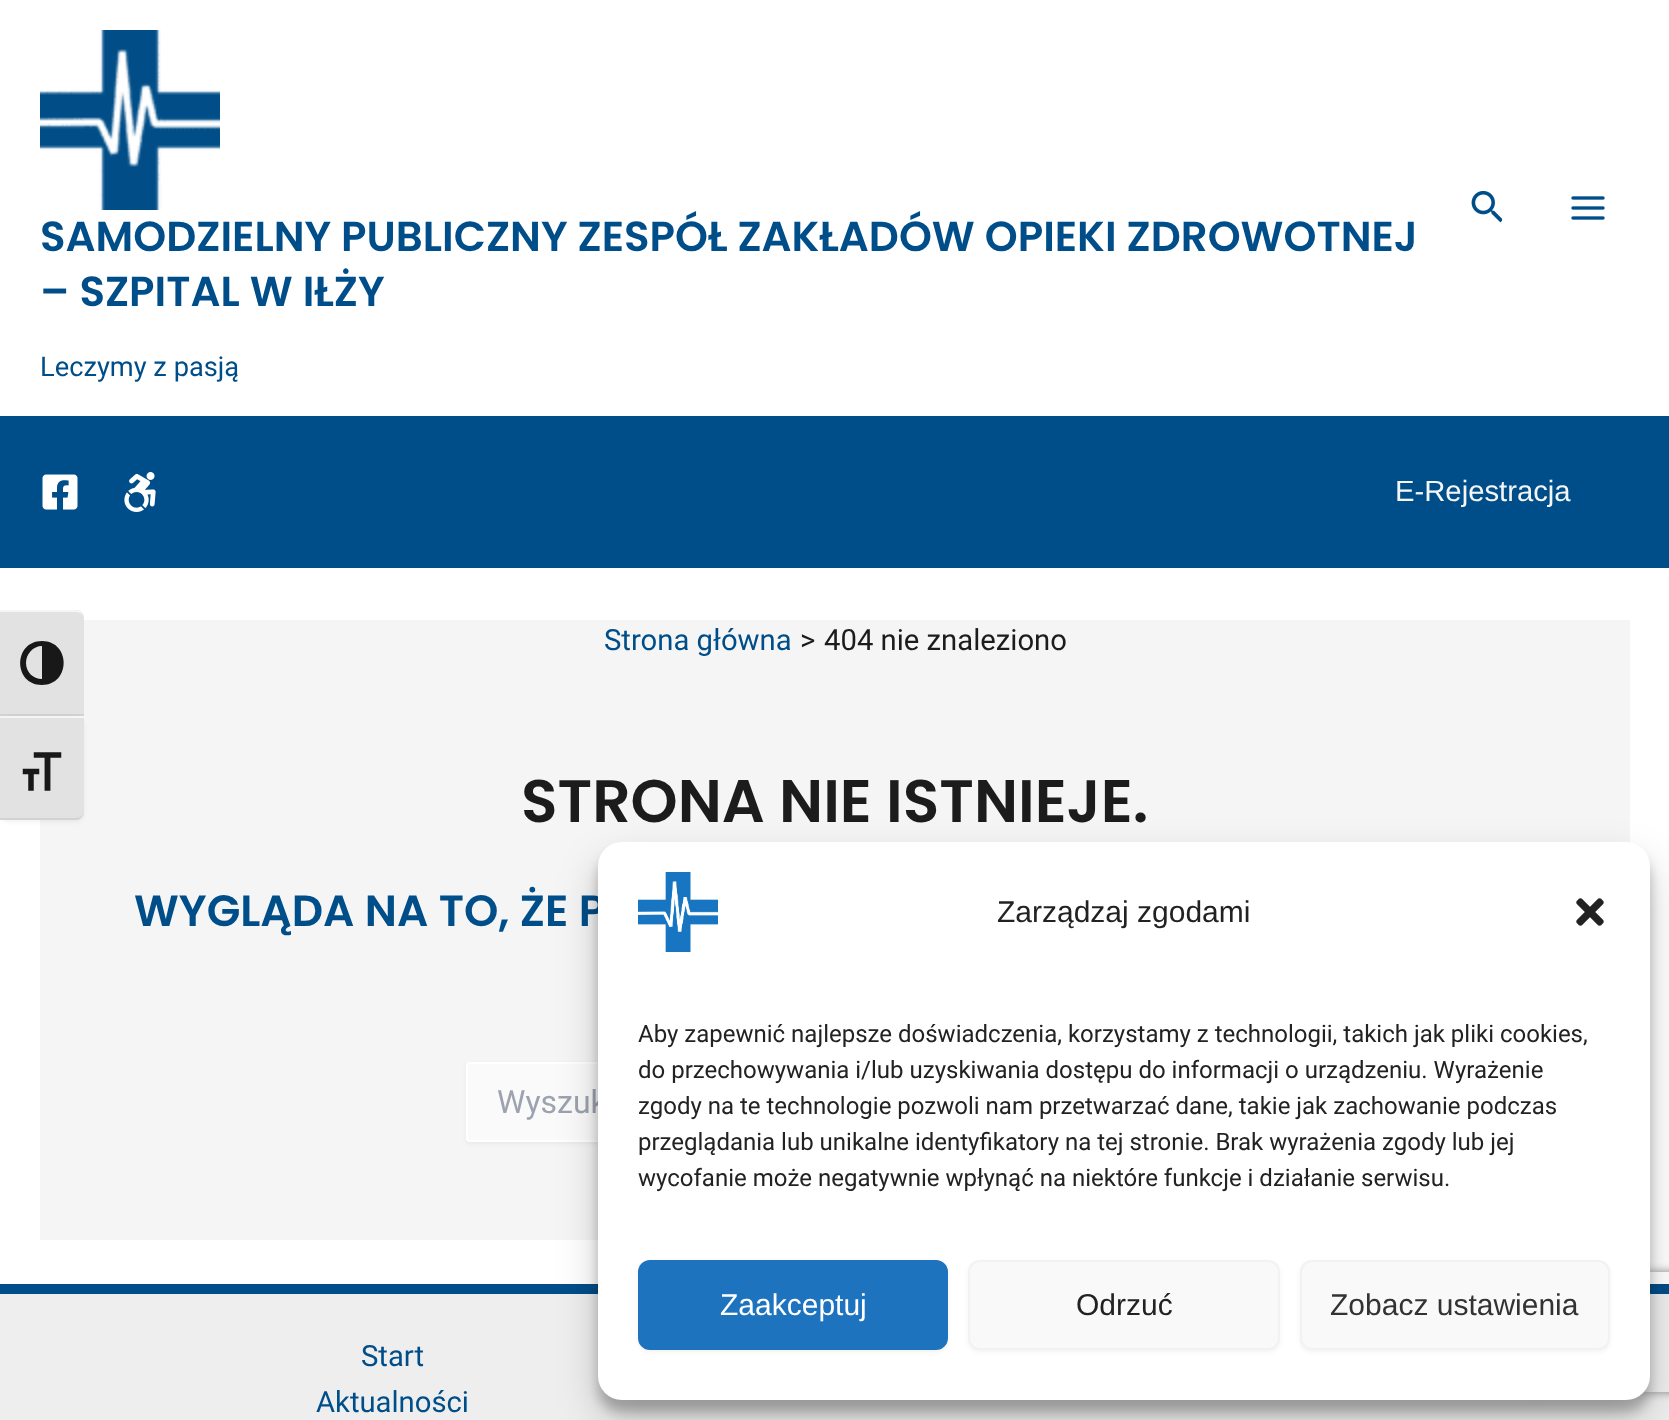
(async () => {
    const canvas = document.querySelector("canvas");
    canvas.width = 1669;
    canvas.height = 1420;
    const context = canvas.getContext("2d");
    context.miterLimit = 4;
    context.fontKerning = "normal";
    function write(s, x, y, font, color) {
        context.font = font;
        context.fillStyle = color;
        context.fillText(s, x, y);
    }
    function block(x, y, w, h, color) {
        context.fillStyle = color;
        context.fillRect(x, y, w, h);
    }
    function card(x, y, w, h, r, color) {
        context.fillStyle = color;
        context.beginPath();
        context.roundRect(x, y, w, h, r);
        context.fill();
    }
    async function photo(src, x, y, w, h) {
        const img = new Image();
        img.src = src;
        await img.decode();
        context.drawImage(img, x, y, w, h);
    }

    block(0, 0, 1669, 1420, "rgb(255, 255, 255)");
    await photo("media/1.png", 1471, 190, 31, 33);
    await photo("media/2.png", 1571, 196, 34, 24);
    await photo("media/3.png", 40, 30, 180, 180);
    write("SAMODZIELNY PUBLICZNY ZESPÓŁ ZAKŁADÓW OPIEKI ZDROWOTNEJ", 40, 251, "600 41.95px Poppins", "rgb(0, 78, 137)");
    write("– SZPITAL W IŁŻY", 40, 306, "600 41.95px Poppins", "rgb(0, 78, 137)");
    write("Leczymy z pasją", 40, 376, "27.25px Roboto", "rgb(0, 78, 137)");
    block(0, 416, 1669, 152, "rgb(0, 78, 137)");
    await photo("media/4.png", 42, 474, 36, 36);
    await photo("media/5.png", 124, 472, 32, 40);
    write("E-Rejestracja", 1395, 501, "29.25px Liberation Sans", "rgb(245, 245, 245)");
    block(40, 620, 1590, 620, "rgb(245, 245, 245)");
    write("Strona główna", 604, 650, "29.25px Roboto", "rgb(0, 78, 137)");
    write(">", 800, 650, "29.25px Roboto", "rgb(28, 28, 28)");
    write("404 nie znaleziono", 824, 650, "29.25px Roboto", "rgb(28, 28, 28)");
    write("STRONA NIE ISTNIEJE.", 521, 822, "600 60px Poppins", "rgb(28, 28, 28)");
    write("WYGLĄDA NA TO, ŻE P", 134, 926, "600 43.75px Poppins", "rgb(0, 78, 137)");
    context.fillStyle = "rgba(0, 0, 0, 0.05)";
    context.filter = "blur(2px)";
    context.beginPath();
    context.roundRect(466, 1064, 740, 80, 4);
    context.fill();
    context.filter = "none";
    context.fillStyle = "rgb(250, 250, 250)";
    context.beginPath();
    context.roundRect(467, 1063, 738, 78, 3);
    context.fill();
    context.strokeStyle = "rgb(255, 255, 255)";
    context.lineWidth = 2;
    context.stroke();
    write("Wyszuk", 497, 1113, "32px Roboto", "rgb(156, 163, 175)");
    block(0, 1294, 1669, 126, "rgb(238, 238, 238)");
    block(0, 1284, 1669, 10, "rgb(0, 78, 137)");
    write("Start", 361, 1366, "29.25px Roboto", "rgb(0, 78, 137)");
    write("Aktualności", 316, 1412, "29.25px Roboto", "rgb(0, 78, 137)");
    context.fillStyle = "rgb(226, 226, 226)";
    context.beginPath();
    context.roundRect(0, 610, 84, 106, [0, 8, 0, 0]);
    context.fill();
    context.fillStyle = "rgb(245, 245, 245)";
    context.beginPath();
    context.moveTo(0, 610);
    context.lineTo(0, 612);
    context.lineTo(76, 612);
    context.bezierCurveTo(80, 612, 84, 615, 84, 618);
    context.bezierCurveTo(84, 614, 80, 610, 76, 610);
    context.closePath();
    context.fill();
    block(0, 714, 84, 2, "rgb(210, 210, 210)");
    context.fillStyle = "rgb(24, 24, 24)";
    context.beginPath();
    context.moveTo(42, 641);
    context.bezierCurveTo(13, 641, 13, 685, 42, 685);
    context.bezierCurveTo(71, 685, 71, 641, 42, 641);
    context.closePath();
    context.moveTo(26, 663);
    context.bezierCurveTo(26, 654, 33, 646, 42, 646);
    context.lineTo(42, 679);
    context.bezierCurveTo(33, 679, 26, 672, 26, 663);
    context.closePath();
    context.fill();
    context.fillStyle = "rgba(0, 0, 0, 0.05)";
    context.filter = "blur(2px)";
    context.beginPath();
    context.roundRect(0, 718, 84, 104, 8);
    context.fill();
    context.filter = "none";
    context.fillStyle = "rgb(226, 226, 226)";
    context.beginPath();
    context.roundRect(0, 716, 84, 104, [0, 0, 8, 0]);
    context.fill();
    block(0, 716, 84, 2, "rgb(245, 245, 245)");
    context.fillStyle = "rgb(210, 210, 210)";
    context.beginPath();
    context.moveTo(0, 818);
    context.lineTo(0, 820);
    context.lineTo(76, 820);
    context.bezierCurveTo(80, 820, 84, 816, 84, 812);
    context.bezierCurveTo(84, 815, 80, 818, 76, 818);
    context.closePath();
    context.fill();
    await photo("media/6.png", 22, 752, 40, 39);
    context.fillStyle = "rgba(0, 0, 0, 0.23)";
    context.filter = "blur(6px)";
    context.beginPath();
    context.roundRect(598, 854, 1052, 558, 24);
    context.fill();
    context.filter = "none";
    context.fillStyle = "rgba(0, 0, 0, 0.19)";
    context.filter = "blur(20px)";
    context.beginPath();
    context.roundRect(598, 862, 1052, 558, 24);
    context.fill();
    context.filter = "none";
    context.save();
    context.beginPath();
    context.moveTo(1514, 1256);
    context.lineTo(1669, 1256);
    context.lineTo(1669, 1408);
    context.lineTo(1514, 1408);
    context.closePath();
    context.moveTo(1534, 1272);
    context.lineTo(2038, 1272);
    context.bezierCurveTo(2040, 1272, 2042, 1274, 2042, 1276);
    context.lineTo(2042, 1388);
    context.bezierCurveTo(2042, 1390, 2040, 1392, 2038, 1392);
    context.lineTo(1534, 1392);
    context.bezierCurveTo(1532, 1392, 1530, 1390, 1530, 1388);
    context.lineTo(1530, 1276);
    context.bezierCurveTo(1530, 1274, 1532, 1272, 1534, 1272);
    context.closePath();
    context.clip("evenodd");
    context.fillStyle = "rgb(128, 128, 128)";
    context.filter = "blur(5px)";
    context.beginPath();
    context.roundRect(1530, 1272, 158, 120, 4);
    context.fill();
    context.filter = "none";
    context.restore();
    card(598, 842, 1052, 558, 24, "rgb(255, 255, 255)");
    await photo("media/7.png", 638, 872, 80, 80);
    write("Zarządzaj zgodami", 997, 922, "30px Liberation Sans", "rgb(34, 34, 34)");
    await photo("media/8.png", 1576, 898, 28, 28);
    write("Aby zapewnić najlepsze doświadczenia, korzystamy z technologii, takich jak pliki cookies,", 638, 1042, "24px Roboto", "rgb(34, 34, 34)");
    write("do przechowywania i/lub uzyskiwania dostępu do informacji o urządzeniu. Wyrażenie", 638, 1078, "24px Roboto", "rgb(34, 34, 34)");
    write("zgody na te technologie pozwoli nam przetwarzać dane, takie jak zachowanie podczas", 638, 1114, "24px Roboto", "rgb(34, 34, 34)");
    write("przeglądania lub unikalne identyfikatory na tej stronie. Brak wyrażenia zgody lub jej", 638, 1150, "24px Roboto", "rgb(34, 34, 34)");
    write("wycofanie może negatywnie wpłynąć na niektóre funkcje i działanie serwisu.", 638, 1186, "24px Roboto", "rgb(34, 34, 34)");
    context.fillStyle = "rgba(0, 0, 0, 0.05)";
    context.filter = "blur(2px)";
    context.beginPath();
    context.roundRect(638, 1262, 310, 90, 12);
    context.fill();
    context.filter = "none";
    context.fillStyle = "rgb(30, 115, 190)";
    context.beginPath();
    context.roundRect(639, 1261, 308, 88, 11);
    context.fill();
    context.strokeStyle = "rgb(30, 115, 190)";
    context.stroke();
    write("Zaakceptuj", 720, 1315, "30px Liberation Sans", "rgb(255, 255, 255)");
    context.fillStyle = "rgba(0, 0, 0, 0.05)";
    context.filter = "blur(2px)";
    context.beginPath();
    context.roundRect(968, 1262, 312, 90, 12);
    context.fill();
    context.filter = "none";
    context.fillStyle = "rgb(249, 249, 249)";
    context.beginPath();
    context.roundRect(969, 1261, 310, 88, 11);
    context.fill();
    context.strokeStyle = "rgb(242, 242, 242)";
    context.stroke();
    write("Odrzuć", 1076, 1315, "30px Liberation Sans", "rgb(34, 34, 34)");
    context.fillStyle = "rgba(0, 0, 0, 0.05)";
    context.filter = "blur(2px)";
    context.beginPath();
    context.roundRect(1300, 1262, 310, 90, 12);
    context.fill();
    context.filter = "none";
    context.fillStyle = "rgb(249, 249, 249)";
    context.beginPath();
    context.roundRect(1301, 1261, 308, 88, 11);
    context.fill();
    context.stroke();
    write("Zobacz ustawienia", 1330, 1315, "30px Liberation Sans", "rgb(51, 51, 51)");
})();
